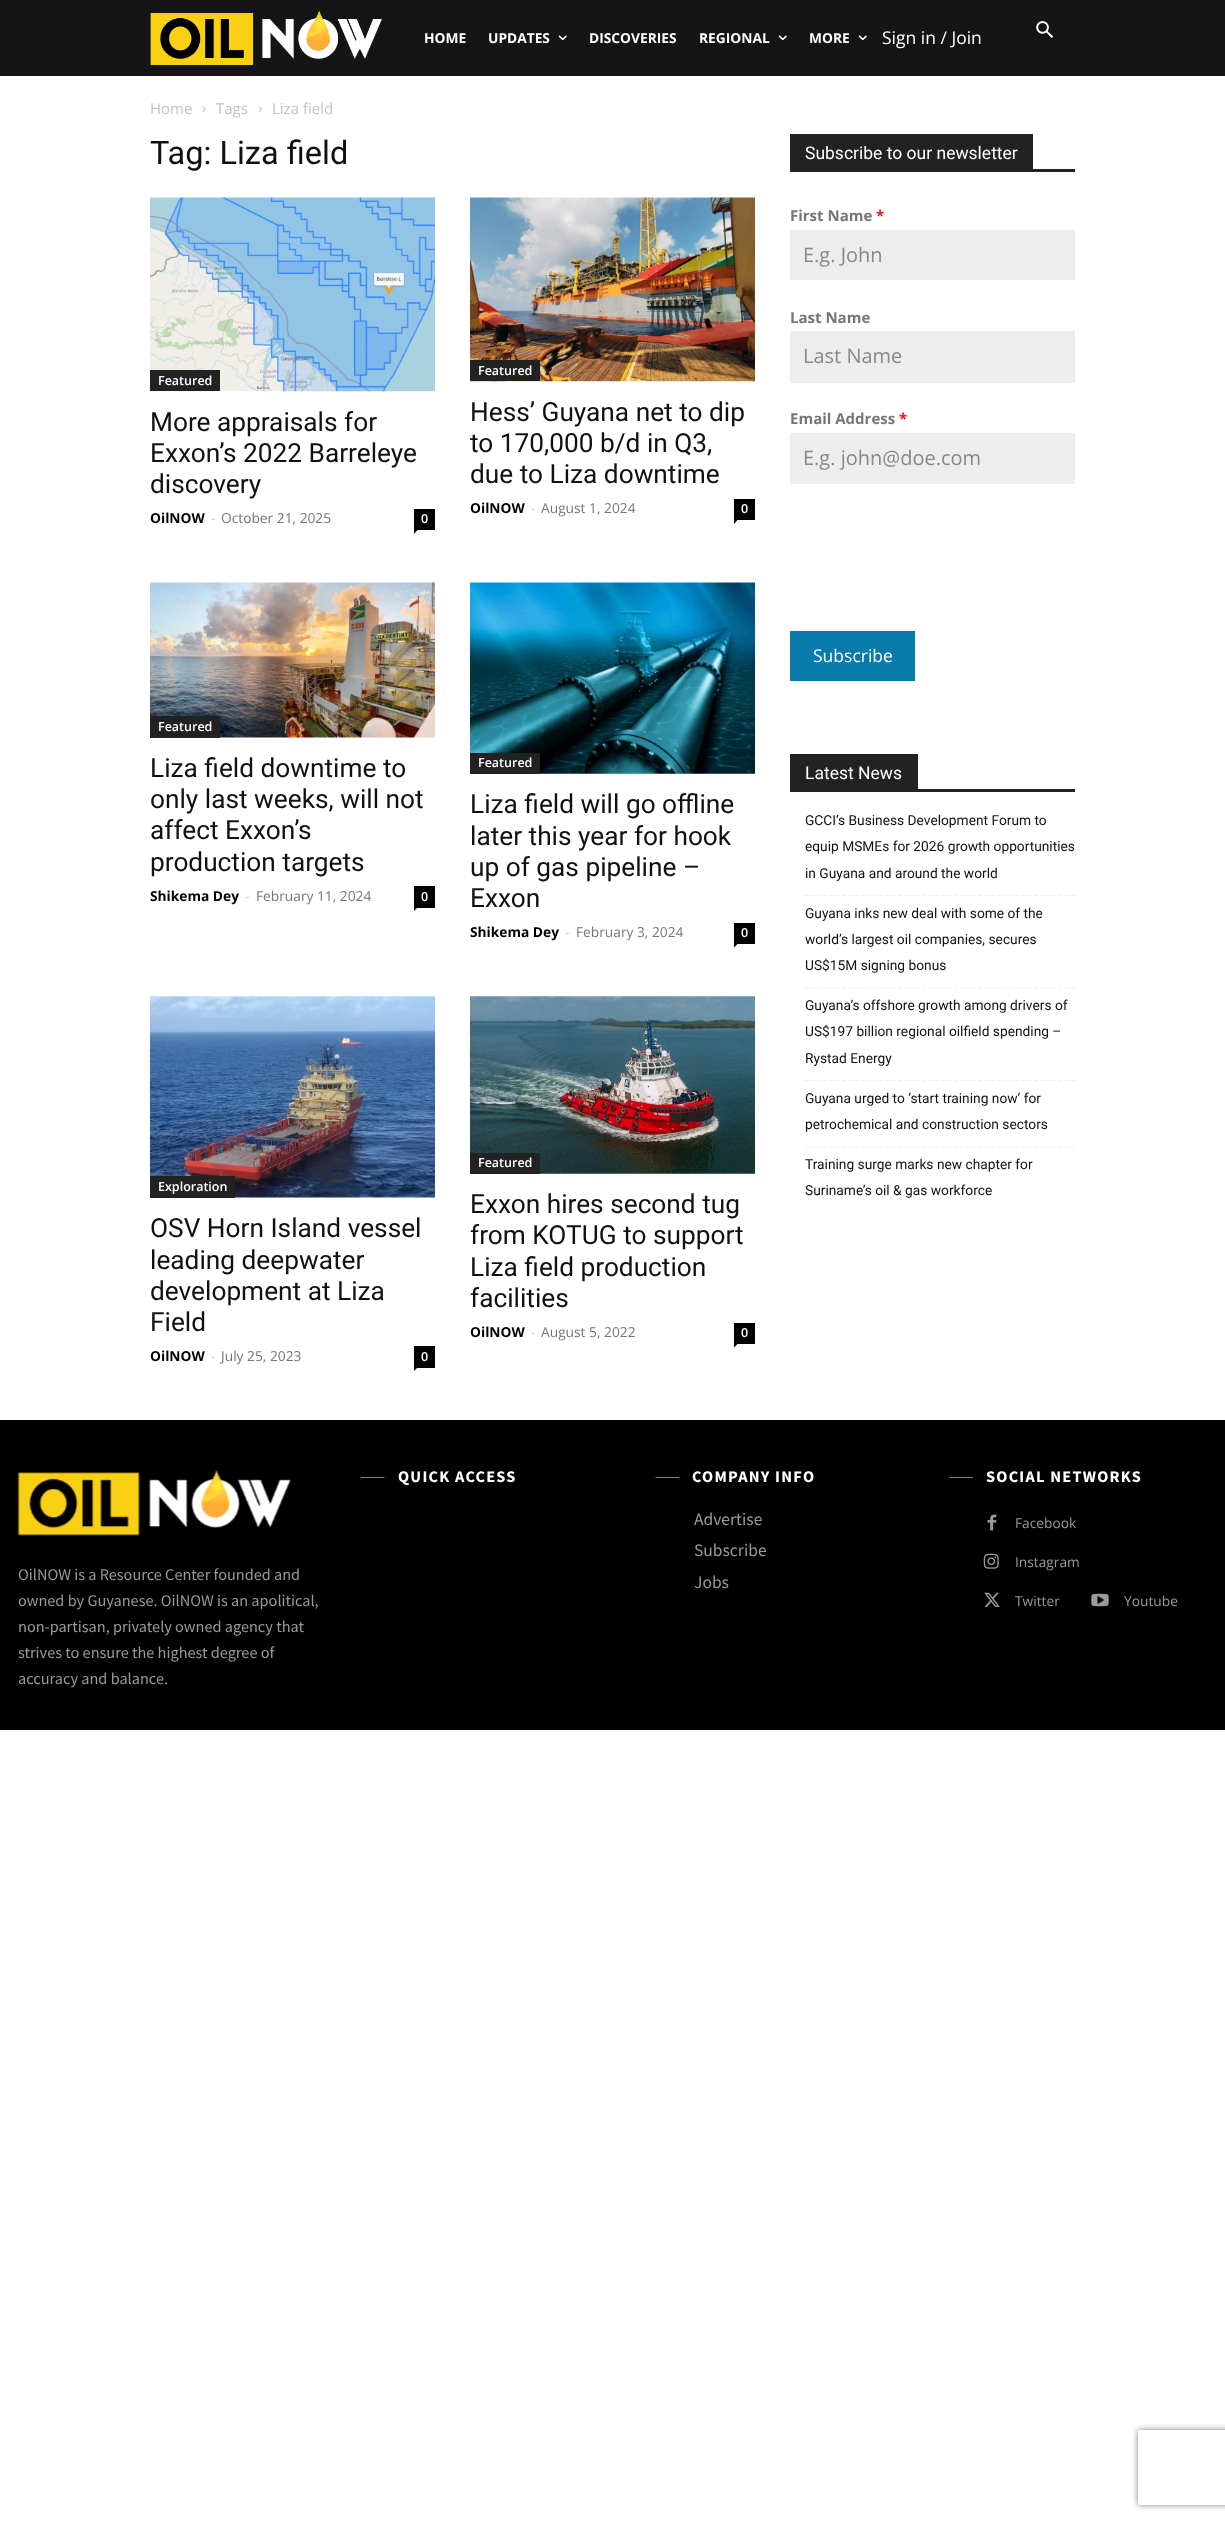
(async () => {
    const canvas = document.querySelector("canvas");
    canvas.width = 1225;
    canvas.height = 2522;
    const context = canvas.getContext("2d");
    context.miterLimit = 4;
    context.fontKerning = "normal";
    function write(s, x, y, font, color) {
        context.font = font;
        context.fillStyle = color;
        context.fillText(s, x, y);
    }
    function block(x, y, w, h, color) {
        context.fillStyle = color;
        context.fillRect(x, y, w, h);
    }
    async function photo(src, x, y, w, h) {
        const img = new Image();
        img.src = src;
        await img.decode();
        context.drawImage(img, x, y, w, h);
    }

    block(0, 0, 1225, 2522, "rgb(255, 255, 255)");
    block(0, 0, 1225, 76, "rgb(21, 21, 21)");
    await photo("media/1.png", 150, 10, 232, 55);
    write("HOME", 424, 43, "bold 13.75px Open Sans", "rgb(255, 255, 255)");
    write("UPDATES", 488, 43, "bold 13.75px Open Sans", "rgb(255, 255, 255)");
    await photo("media/2.png", 558, 35, 9, 6);
    write("DISCOVERIES", 589, 43, "bold 13.75px Open Sans", "rgb(255, 255, 255)");
    write("REGIONAL", 699, 43, "bold 13.75px Open Sans", "rgb(255, 255, 255)");
    await photo("media/2.png", 778, 35, 9, 6);
    write("MORE", 809, 43, "bold 13.75px Open Sans", "rgb(255, 255, 255)");
    await photo("media/2.png", 858, 35, 9, 6);
    write("Sign in / Join", 882, 44, "17.5px Open Sans", "rgb(255, 255, 255)");
    await photo("media/3.png", 1036, 21, 17, 17);
    write("Home", 150, 114, "15px Open Sans", "rgb(195, 195, 195)");
    await photo("media/4.png", 202, 106, 4, 7);
    write("Tags", 216, 114, "15px Open Sans", "rgb(195, 195, 195)");
    await photo("media/5.png", 258, 106, 4, 7);
    write("Liza field", 272, 114, "15px Open Sans", "rgb(195, 195, 195)");
    write("Tag: Liza field", 150, 164, "32.5px Roboto", "rgb(17, 17, 17)");
    await photo("media/6.png", 150, 197, 285, 195);
    block(150, 370, 70, 21, "rgb(34, 34, 34)");
    write("Featured", 158, 385, "600 12.5px Open Sans", "rgb(255, 255, 255)");
    write("More appraisals for", 150, 431, "26.25px Roboto", "rgb(17, 17, 17)");
    write("Exxon’s 2022 Barreleye", 150, 462, "26.25px Roboto", "rgb(17, 17, 17)");
    write("discovery", 150, 493, "26.25px Roboto", "rgb(17, 17, 17)");
    write("OilNOW", 150, 523, "bold 13.75px Open Sans", "rgb(0, 0, 0)");
    write("-", 211, 523, "13.75px Open Sans", "rgb(204, 204, 204)");
    write("October 21, 2025", 221, 523, "13.75px Open Sans", "rgb(118, 118, 118)");
    block(414, 509, 21, 21, "rgb(0, 0, 0)");
    write("0", 421, 523, "600 12.5px Open Sans", "rgb(255, 255, 255)");
    context.fillStyle = "rgb(0, 0, 0)";
    context.beginPath();
    context.moveTo(414, 530);
    context.lineTo(417.5, 530);
    context.lineTo(414, 534);
    context.closePath();
    context.fill();
    await photo("media/7.png", 470, 197, 285, 185);
    block(470, 360, 70, 21, "rgb(34, 34, 34)");
    write("Featured", 478, 375, "600 12.5px Open Sans", "rgb(255, 255, 255)");
    write("Hess’ Guyana net to dip", 470, 421, "26.25px Roboto", "rgb(17, 17, 17)");
    write("to 170,000 b/d in Q3,", 470, 452, "26.25px Roboto", "rgb(17, 17, 17)");
    write("due to Liza downtime", 470, 483, "26.25px Roboto", "rgb(17, 17, 17)");
    write("OilNOW", 470, 513, "bold 13.75px Open Sans", "rgb(0, 0, 0)");
    write("-", 531, 513, "13.75px Open Sans", "rgb(204, 204, 204)");
    write("August 1, 2024", 541, 513, "13.75px Open Sans", "rgb(118, 118, 118)");
    block(734, 499, 21, 21, "rgb(0, 0, 0)");
    write("0", 741, 513, "600 12.5px Open Sans", "rgb(255, 255, 255)");
    context.fillStyle = "rgb(0, 0, 0)";
    context.beginPath();
    context.moveTo(734, 520);
    context.lineTo(737.5, 520);
    context.lineTo(734, 524);
    context.closePath();
    context.fill();
    await photo("media/8.png", 150, 582, 285, 156);
    block(150, 716, 70, 22, "rgb(34, 34, 34)");
    write("Featured", 158, 731, "600 12.5px Open Sans", "rgb(255, 255, 255)");
    write("Liza field downtime to", 150, 777, "26.25px Roboto", "rgb(17, 17, 17)");
    write("only last weeks, will not", 150, 808, "26.25px Roboto", "rgb(17, 17, 17)");
    write("affect Exxon’s", 150, 839, "26.25px Roboto", "rgb(17, 17, 17)");
    write("production targets", 150, 871, "26.25px Roboto", "rgb(17, 17, 17)");
    write("Shikema Dey", 150, 901, "bold 13.75px Open Sans", "rgb(0, 0, 0)");
    write("-", 245, 901, "13.75px Open Sans", "rgb(204, 204, 204)");
    write("February 11, 2024", 256, 901, "13.75px Open Sans", "rgb(118, 118, 118)");
    block(414, 886, 21, 22, "rgb(0, 0, 0)");
    write("0", 421, 901, "600 12.5px Open Sans", "rgb(255, 255, 255)");
    context.fillStyle = "rgb(0, 0, 0)";
    context.beginPath();
    context.moveTo(414, 907.5);
    context.lineTo(417.5, 907.5);
    context.lineTo(414, 911);
    context.closePath();
    context.fill();
    await photo("media/9.png", 470, 582, 285, 192);
    block(470, 753, 70, 21, "rgb(34, 34, 34)");
    write("Featured", 478, 767, "600 12.5px Open Sans", "rgb(255, 255, 255)");
    write("Liza field will go offline", 470, 813, "26.25px Roboto", "rgb(17, 17, 17)");
    write("later this year for hook", 470, 845, "26.25px Roboto", "rgb(17, 17, 17)");
    write("up of gas pipeline –", 470, 876, "26.25px Roboto", "rgb(17, 17, 17)");
    write("Exxon", 470, 907, "26.25px Roboto", "rgb(17, 17, 17)");
    write("Shikema Dey", 470, 937, "bold 13.75px Open Sans", "rgb(0, 0, 0)");
    write("-", 565, 937, "13.75px Open Sans", "rgb(204, 204, 204)");
    write("February 3, 2024", 576, 937, "13.75px Open Sans", "rgb(118, 118, 118)");
    block(734, 923, 21, 21, "rgb(0, 0, 0)");
    write("0", 741, 937, "600 12.5px Open Sans", "rgb(255, 255, 255)");
    context.fillStyle = "rgb(0, 0, 0)";
    context.beginPath();
    context.moveTo(734, 944);
    context.lineTo(737.5, 944);
    context.lineTo(734, 947.5);
    context.closePath();
    context.fill();
    await photo("media/10.png", 150, 996, 285, 202);
    block(150, 1176, 85, 22, "rgb(34, 34, 34)");
    write("Exploration", 158, 1191, "600 12.5px Open Sans", "rgb(255, 255, 255)");
    write("OSV Horn Island vessel", 150, 1237, "26.25px Roboto", "rgb(17, 17, 17)");
    write("leading deepwater", 150, 1269, "26.25px Roboto", "rgb(17, 17, 17)");
    write("development at Liza", 150, 1300, "26.25px Roboto", "rgb(17, 17, 17)");
    write("Field", 150, 1331, "26.25px Roboto", "rgb(17, 17, 17)");
    write("OilNOW", 150, 1361, "bold 13.75px Open Sans", "rgb(0, 0, 0)");
    write("-", 211, 1361, "13.75px Open Sans", "rgb(204, 204, 204)");
    write("July 25, 2023", 221, 1361, "13.75px Open Sans", "rgb(118, 118, 118)");
    block(414, 1346, 21, 22, "rgb(0, 0, 0)");
    write("0", 421, 1361, "600 12.5px Open Sans", "rgb(255, 255, 255)");
    context.fillStyle = "rgb(0, 0, 0)";
    context.beginPath();
    context.moveTo(414, 1367.5);
    context.lineTo(417.5, 1367.5);
    context.lineTo(414, 1371);
    context.closePath();
    context.fill();
    await photo("media/11.png", 470, 996, 285, 178);
    block(470, 1153, 70, 21, "rgb(34, 34, 34)");
    write("Featured", 478, 1167, "600 12.5px Open Sans", "rgb(255, 255, 255)");
    write("Exxon hires second tug", 470, 1213, "26.25px Roboto", "rgb(17, 17, 17)");
    write("from KOTUG to support", 470, 1244, "26.25px Roboto", "rgb(17, 17, 17)");
    write("Liza field production", 470, 1276, "26.25px Roboto", "rgb(17, 17, 17)");
    write("facilities", 470, 1307, "26.25px Roboto", "rgb(17, 17, 17)");
    write("OilNOW", 470, 1337, "bold 13.75px Open Sans", "rgb(0, 0, 0)");
    write("-", 531, 1337, "13.75px Open Sans", "rgb(204, 204, 204)");
    write("August 5, 2022", 541, 1337, "13.75px Open Sans", "rgb(118, 118, 118)");
    block(734, 1323, 21, 21, "rgb(0, 0, 0)");
    write("0", 741, 1337, "600 12.5px Open Sans", "rgb(255, 255, 255)");
    context.fillStyle = "rgb(0, 0, 0)";
    context.beginPath();
    context.moveTo(734, 1344);
    context.lineTo(737.5, 1344);
    context.lineTo(734, 1347.5);
    context.closePath();
    context.fill();
    block(790, 169, 285, 3, "rgb(34, 34, 34)");
    block(790, 134, 243, 35, "rgb(34, 34, 34)");
    write("Subscribe to our newsletter", 805, 159, "17.5px Roboto", "rgb(255, 255, 255)");
    write("First Name", 790, 221, "bold 15px Open Sans", "rgb(118, 118, 118)");
    write("*", 876, 221, "bold 15px Open Sans", "rgb(229, 25, 25)");
    block(790, 230, 285, 50, "rgb(237, 237, 237)");
    write("E.g. John", 803, 262, "20px Open Sans", "rgb(136, 136, 136)");
    write("Last Name", 790, 323, "bold 15px Open Sans", "rgb(118, 118, 118)");
    block(790, 331, 285, 52, "rgb(237, 237, 237)");
    write("Last Name", 803, 363, "20px Open Sans", "rgb(136, 136, 136)");
    write("Email Address", 790, 424, "bold 15px Open Sans", "rgb(118, 118, 118)");
    write("*", 899, 424, "bold 15px Open Sans", "rgb(229, 25, 25)");
    block(790, 433, 285, 51, "rgb(237, 237, 237)");
    write("E.g. john@doe.com", 803, 465, "20px Open Sans", "rgb(136, 136, 136)");
    block(790, 631, 125, 50, "rgb(9, 123, 170)");
    write("Subscribe", 813, 662, "17.5px Open Sans", "rgb(255, 255, 255)");
    block(790, 789, 285, 3, "rgb(34, 34, 34)");
    block(790, 754, 128, 35, "rgb(34, 34, 34)");
    write("Latest News", 805, 779, "17.5px Roboto", "rgb(255, 255, 255)");
    context.beginPath();
    context.moveTo(805, 895.5);
    context.lineTo(1075, 895.5);
    context.strokeStyle = "rgb(241, 241, 241)";
    context.lineWidth = 1.2;
    context.setLineDash([3.75, 2.44]);
    context.stroke();
    write("GCCI’s Business Development Forum to", 805, 825, "13.75px Roboto", "rgb(17, 17, 17)");
    write("equip MSMEs for 2026 growth opportunities", 805, 851, "13.75px Roboto", "rgb(17, 17, 17)");
    write("in Guyana and around the world", 805, 878, "13.75px Roboto", "rgb(17, 17, 17)");
    context.beginPath();
    context.moveTo(805, 988);
    context.lineTo(1075, 988);
    context.stroke();
    write("Guyana inks new deal with some of the", 805, 918, "13.75px Roboto", "rgb(17, 17, 17)");
    write("world’s largest oil companies, secures", 805, 944, "13.75px Roboto", "rgb(17, 17, 17)");
    write("US$15M signing bonus", 805, 970, "13.75px Roboto", "rgb(17, 17, 17)");
    context.beginPath();
    context.moveTo(805, 1080.5);
    context.lineTo(1075, 1080.5);
    context.stroke();
    write("Guyana’s offshore growth among drivers of", 805, 1010, "13.75px Roboto", "rgb(17, 17, 17)");
    write("US$197 billion regional oilfield spending –", 805, 1036, "13.75px Roboto", "rgb(17, 17, 17)");
    write("Rystad Energy", 805, 1063, "13.75px Roboto", "rgb(17, 17, 17)");
    context.beginPath();
    context.moveTo(805, 1147);
    context.lineTo(1075, 1147);
    context.stroke();
    write("Guyana urged to ‘start training now’ for", 805, 1103, "13.75px Roboto", "rgb(17, 17, 17)");
    write("petrochemical and construction sectors", 805, 1129, "13.75px Roboto", "rgb(17, 17, 17)");
    write("Training surge marks new chapter for", 805, 1169, "13.75px Roboto", "rgb(17, 17, 17)");
    write("Suriname’s oil & gas workforce", 805, 1195, "13.75px Roboto", "rgb(17, 17, 17)");
    block(0, 1420, 1225, 310, "rgb(0, 0, 0)");
    context.fillStyle = "rgb(255, 255, 255)";
    context.beginPath();
    context.moveTo(360.5, 1477.5);
    context.lineTo(384.5, 1477.5);
    context.lineTo(384.5, 1478);
    context.lineTo(360.5, 1478);
    context.closePath();
    context.fill();
    context.letterSpacing = "1.25px";
    write("QUICK ACCESS", 398, 1482, "bold 16.25px Source Sans Pro", "rgb(255, 255, 255)");
    context.beginPath();
    context.moveTo(655.5, 1477.5);
    context.lineTo(679.5, 1477.5);
    context.lineTo(679.5, 1478);
    context.lineTo(655.5, 1478);
    context.closePath();
    context.fill();
    write("COMPANY INFO", 692, 1482, "bold 16.25px Source Sans Pro", "rgb(255, 255, 255)");
    context.letterSpacing = "0px";
    write("Advertise", 694, 1525, "17.5px Source Sans Pro", "rgb(153, 153, 153)");
    write("Subscribe", 694, 1556, "17.5px Source Sans Pro", "rgb(153, 153, 153)");
    write("Jobs", 694, 1588, "17.5px Source Sans Pro", "rgb(153, 153, 153)");
    context.fillStyle = "rgb(255, 255, 255)";
    context.beginPath();
    context.moveTo(949.5, 1477.5);
    context.lineTo(973, 1477.5);
    context.lineTo(973, 1478);
    context.lineTo(949.5, 1478);
    context.closePath();
    context.fill();
    context.letterSpacing = "1.25px";
    write("SOCIAL NETWORKS", 986, 1482, "bold 16.25px Source Sans Pro", "rgb(255, 255, 255)");
    await photo("media/12.png", 987, 1514, 10, 17);
    context.letterSpacing = "0px";
    write("Facebook", 1015, 1528, "13.75px Open Sans", "rgb(153, 153, 153)");
    await photo("media/13.png", 983, 1553, 16, 16);
    write("Instagram", 1015, 1567, "13.75px Open Sans", "rgb(153, 153, 153)");
    await photo("media/14.png", 984, 1592, 16, 15);
    write("Twitter", 1015, 1606, "13.75px Open Sans", "rgb(153, 153, 153)");
    await photo("media/15.png", 1091, 1593, 18, 14);
    write("Youtube", 1124, 1606, "13.75px Open Sans", "rgb(153, 153, 153)");
    await photo("media/16.png", 17, 1470, 274, 66);
    write("OilNOW is a Resource Center founded and", 18, 1580, "16.25px Source Sans Pro", "rgb(153, 153, 153)");
    write("owned by Guyanese. OilNOW is an apolitical,", 18, 1606, "16.25px Source Sans Pro", "rgb(153, 153, 153)");
    write("non-partisan, privately owned agency that", 18, 1632, "16.25px Source Sans Pro", "rgb(153, 153, 153)");
    write("strives to ensure the highest degree of", 18, 1658, "16.25px Source Sans Pro", "rgb(153, 153, 153)");
    write("accuracy and balance.", 18, 1684, "16.25px Source Sans Pro", "rgb(153, 153, 153)");
    context.save();
    context.beginPath();
    context.moveTo(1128, 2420);
    context.lineTo(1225, 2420);
    context.lineTo(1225, 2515);
    context.lineTo(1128, 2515);
    context.closePath();
    context.moveTo(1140.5, 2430);
    context.lineTo(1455.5, 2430);
    context.bezierCurveTo(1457, 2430, 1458, 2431, 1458, 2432.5);
    context.lineTo(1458, 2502.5);
    context.bezierCurveTo(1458, 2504, 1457, 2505, 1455.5, 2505);
    context.lineTo(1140.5, 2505);
    context.bezierCurveTo(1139, 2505, 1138, 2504, 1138, 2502.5);
    context.lineTo(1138, 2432.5);
    context.bezierCurveTo(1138, 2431, 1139, 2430, 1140.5, 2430);
    context.closePath();
    context.clip("evenodd");
    context.fillStyle = "rgb(128, 128, 128)";
    context.filter = "blur(3px)";
    context.beginPath();
    context.roundRect(1138, 2430, 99, 75, 2.5);
    context.fill();
    context.filter = "none";
    context.restore();
})();
